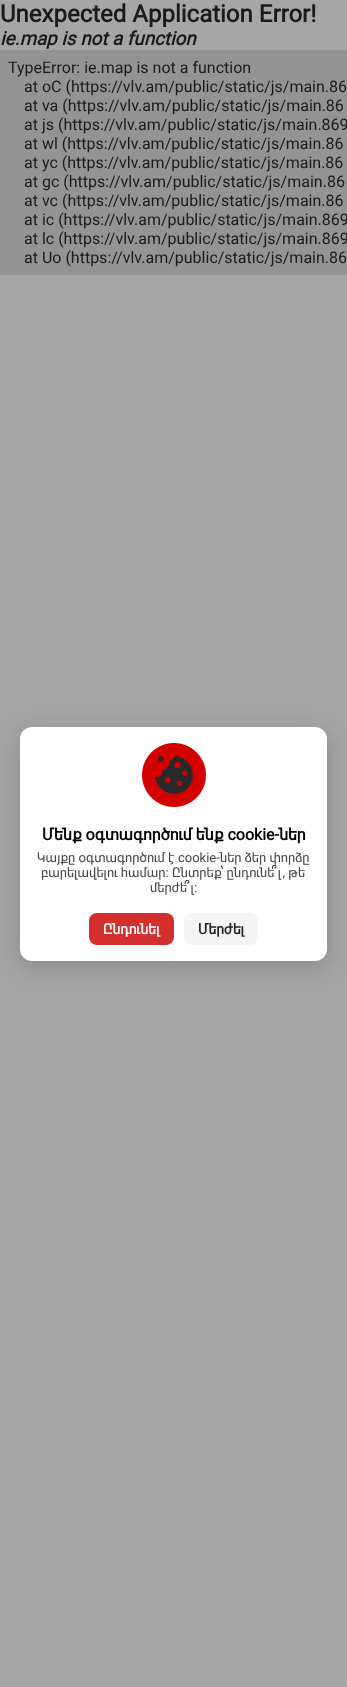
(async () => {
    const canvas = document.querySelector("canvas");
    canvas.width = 347;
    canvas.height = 1687;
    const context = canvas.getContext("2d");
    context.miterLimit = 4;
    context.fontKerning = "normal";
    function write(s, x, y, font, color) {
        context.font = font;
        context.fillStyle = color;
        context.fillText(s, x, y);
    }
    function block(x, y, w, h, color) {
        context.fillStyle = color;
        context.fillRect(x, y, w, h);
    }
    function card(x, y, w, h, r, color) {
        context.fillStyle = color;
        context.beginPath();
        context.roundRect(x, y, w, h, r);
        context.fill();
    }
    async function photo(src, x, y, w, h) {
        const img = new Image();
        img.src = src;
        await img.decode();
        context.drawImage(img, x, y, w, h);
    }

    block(0, 0, 347, 1687, "rgb(166, 166, 166)");
    write("Unexpected Application Error!", 0, 22, "bold 24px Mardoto", "rgb(26, 26, 26)");
    write("ie.map is not a function", 0, 45, "italic bold 18.75px Mardoto", "rgb(26, 26, 26)");
    block(0, 50, 347, 225, "rgb(148, 148, 148)");
    write("TypeError: ie.map is not a function", 8, 73, "16px Mardoto", "rgb(26, 26, 26)");
    write("at oC (https://vlv.am/public/static/js/main.86", 24, 92, "16px Mardoto", "rgb(26, 26, 26)");
    write("at va (https://vlv.am/public/static/js/main.86", 24, 111, "16px Mardoto", "rgb(26, 26, 26)");
    write("at js (https://vlv.am/public/static/js/main.869", 24, 130, "16px Mardoto", "rgb(26, 26, 26)");
    write("at wl (https://vlv.am/public/static/js/main.86", 24, 149, "16px Mardoto", "rgb(26, 26, 26)");
    write("at yc (https://vlv.am/public/static/js/main.86", 24, 168, "16px Mardoto", "rgb(26, 26, 26)");
    write("at gc (https://vlv.am/public/static/js/main.86", 24, 187, "16px Mardoto", "rgb(26, 26, 26)");
    write("at vc (https://vlv.am/public/static/js/main.86", 24, 206, "16px Mardoto", "rgb(26, 26, 26)");
    write("at ic (https://vlv.am/public/static/js/main.869", 24, 225, "16px Mardoto", "rgb(26, 26, 26)");
    write("at lc (https://vlv.am/public/static/js/main.869", 24, 244, "16px Mardoto", "rgb(26, 26, 26)");
    write("at Uo (https://vlv.am/public/static/js/main.86", 24, 263, "16px Mardoto", "rgb(26, 26, 26)");
    context.fillStyle = "rgba(0, 0, 0, 0.18)";
    context.filter = "blur(12px)";
    context.beginPath();
    context.roundRect(20, 733, 307, 234, 12);
    context.fill();
    context.filter = "none";
    card(20, 727, 307, 234, 12, "rgb(255, 255, 255)");
    await photo("media/1.png", 142, 743, 64, 64);
    write("Մենք օգտագործում ենք cookie-ներ", 42, 840, "bold 16px Mardoto", "rgb(0, 0, 0)");
    write("Կայքը օգտագործում է cookie-ներ ձեր փորձը", 37, 862, "13px Mardoto", "rgb(68, 68, 68)");
    write("բարելավելու համար։ Ընտրեք՝ ընդունե՞լ, թե", 41, 877, "13px Mardoto", "rgb(68, 68, 68)");
    write("մերժե՞լ։", 150, 892, "13px Mardoto", "rgb(68, 68, 68)");
    card(89, 913, 85, 32, 8, "rgb(211, 47, 47)");
    write("Ընդունել", 103, 934, "bold 14px Mardoto", "rgb(255, 255, 255)");
    card(184, 913, 74, 32, 8, "rgb(245, 245, 245)");
    write("Մերժել", 198, 934, "bold 14px Mardoto", "rgb(34, 34, 34)");
})();
